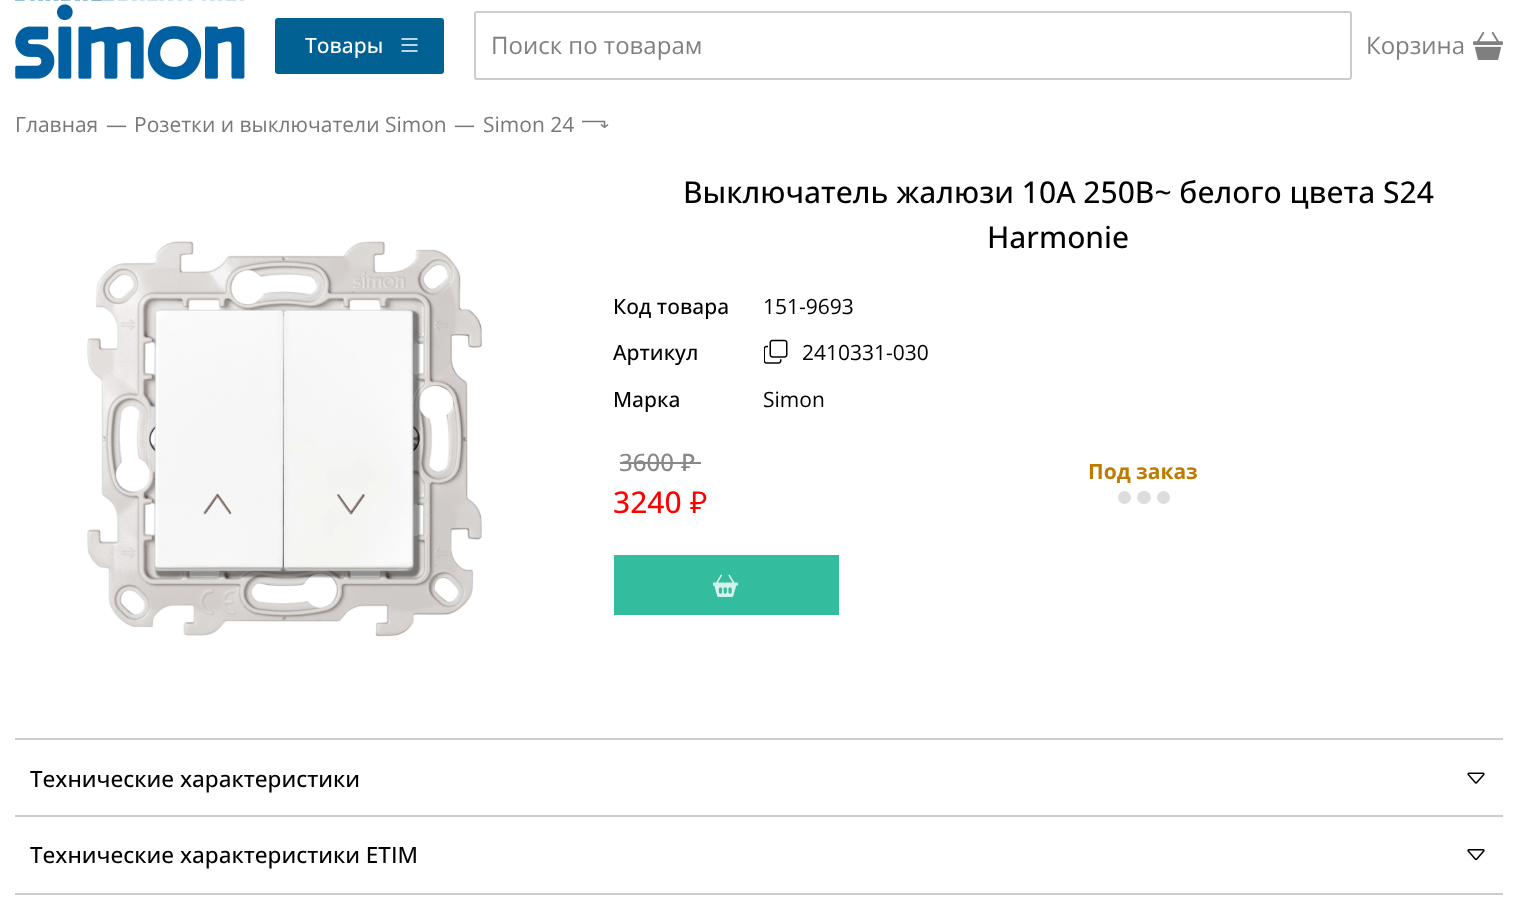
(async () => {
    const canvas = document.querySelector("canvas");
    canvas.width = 1517;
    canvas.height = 919;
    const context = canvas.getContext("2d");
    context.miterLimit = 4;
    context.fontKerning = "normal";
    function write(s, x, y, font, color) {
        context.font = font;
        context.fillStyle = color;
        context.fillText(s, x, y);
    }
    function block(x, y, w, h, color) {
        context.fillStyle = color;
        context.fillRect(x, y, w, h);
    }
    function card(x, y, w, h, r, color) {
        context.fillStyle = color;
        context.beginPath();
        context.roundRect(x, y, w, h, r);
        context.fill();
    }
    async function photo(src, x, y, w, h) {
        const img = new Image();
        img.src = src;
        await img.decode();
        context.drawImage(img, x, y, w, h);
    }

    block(0, 0, 1517, 919, "rgb(255, 255, 255)");
    await photo("media/1.png", 15, 0, 230, 80);
    card(275, 18, 169, 56, 3, "rgb(0, 97, 146)");
    write("Товары", 305, 53, "500 21px Open Sans", "rgb(255, 255, 255)");
    await photo("media/2.png", 401, 38, 17, 14);
    context.beginPath();
    context.roundRect(475, 12, 876, 67, 2);
    context.strokeStyle = "rgb(204, 204, 204)";
    context.lineWidth = 2;
    context.stroke();
    write("Поиск по товарам", 491, 54, "24px Open Sans", "rgb(128, 128, 128)");
    write("Корзина", 1366, 54, "24px Open Sans", "rgb(128, 128, 128)");
    await photo("media/3.png", 1473, 32, 30, 28);
    write("Главная", 15, 132, "21px Open Sans", "rgb(120, 120, 120)");
    write("—", 106, 132, "21px Open Sans", "rgb(120, 120, 120)");
    write("Розетки и выключатели Simon", 134, 132, "21px Open Sans", "rgb(120, 120, 120)");
    write("—", 454, 132, "21px Open Sans", "rgb(120, 120, 120)");
    write("Simon 24", 483, 132, "21px Open Sans", "rgb(120, 120, 120)");
    context.beginPath();
    context.moveTo(582, 121.5);
    context.lineTo(604.5, 121.5);
    context.lineTo(604.5, 127.5);
    context.moveTo(604.5, 127.5);
    context.lineTo(608, 124.5);
    context.moveTo(604.5, 127.5);
    context.lineTo(601, 124.5);
    context.strokeStyle = "rgb(120, 120, 120)";
    context.lineWidth = 1.5;
    context.stroke();
    await photo("media/4.png", 87, 241, 395, 396);
    write("Выключатель жалюзи 10A 250В~ белого цвета S24", 683, 203, "500 30px Open Sans", "rgb(0, 0, 0)");
    write("Harmonie", 987, 248, "500 30px Open Sans", "rgb(0, 0, 0)");
    write("Код товара", 613, 314, "500 21px Open Sans", "rgb(0, 0, 0)");
    write("151-9693", 763, 314, "21px Open Sans", "rgb(0, 0, 0)");
    write("Артикул", 613, 360, "500 21px Open Sans", "rgb(0, 0, 0)");
    await photo("media/5.png", 764, 339, 24, 25);
    write("2410331-030", 802, 360, "21px Open Sans", "rgb(0, 0, 0)");
    write("Марка", 613, 407, "500 21px Open Sans", "rgb(0, 0, 0)");
    write("Simon", 763, 407, "21px Open Sans", "rgb(0, 0, 0)");
    write("3600", 619, 471, "500 24px Open Sans", "rgb(136, 136, 136)");
    block(620, 462, 55, 2, "rgb(136, 136, 136)");
    write("₽", 681, 471, "500 24px Noto Sans", "rgb(136, 136, 136)");
    block(675, 462, 26, 2, "rgb(136, 136, 136)");
    write("3240", 613, 513, "500 30px Open Sans", "rgb(255, 0, 0)");
    write("₽", 690, 513, "30px Noto Sans", "rgb(255, 0, 0)");
    write("Под заказ", 1088, 479, "bold 21px Open Sans", "rgb(189, 123, 2)");
    context.fillStyle = "rgb(221, 221, 221)";
    context.beginPath();
    context.arc(1124.5, 497.5, 6.5, 0, Math.PI * 2);
    context.fill();
    card(1137, 491, 14, 13, 6.5, "rgb(221, 221, 221)");
    context.beginPath();
    context.arc(1163.5, 497.5, 6.5, 0, Math.PI * 2);
    context.fill();
    block(614, 555, 225, 60, "rgb(51, 189, 158)");
    await photo("media/6.png", 713, 574, 25, 23);
    block(15, 738, 1488, 2, "rgb(204, 204, 204)");
    block(15, 815, 1488, 2, "rgb(204, 204, 204)");
    write("Технические характеристики", 30, 787, "500 22.5px Open Sans", "rgb(0, 0, 0)");
    await photo("media/7.png", 1467, 772, 18, 12);
    block(15, 893, 1488, 2, "rgb(204, 204, 204)");
    write("Технические характеристики ETIM", 30, 863, "500 22.5px Open Sans", "rgb(0, 0, 0)");
    await photo("media/8.png", 1467, 849, 18, 12);
})();
